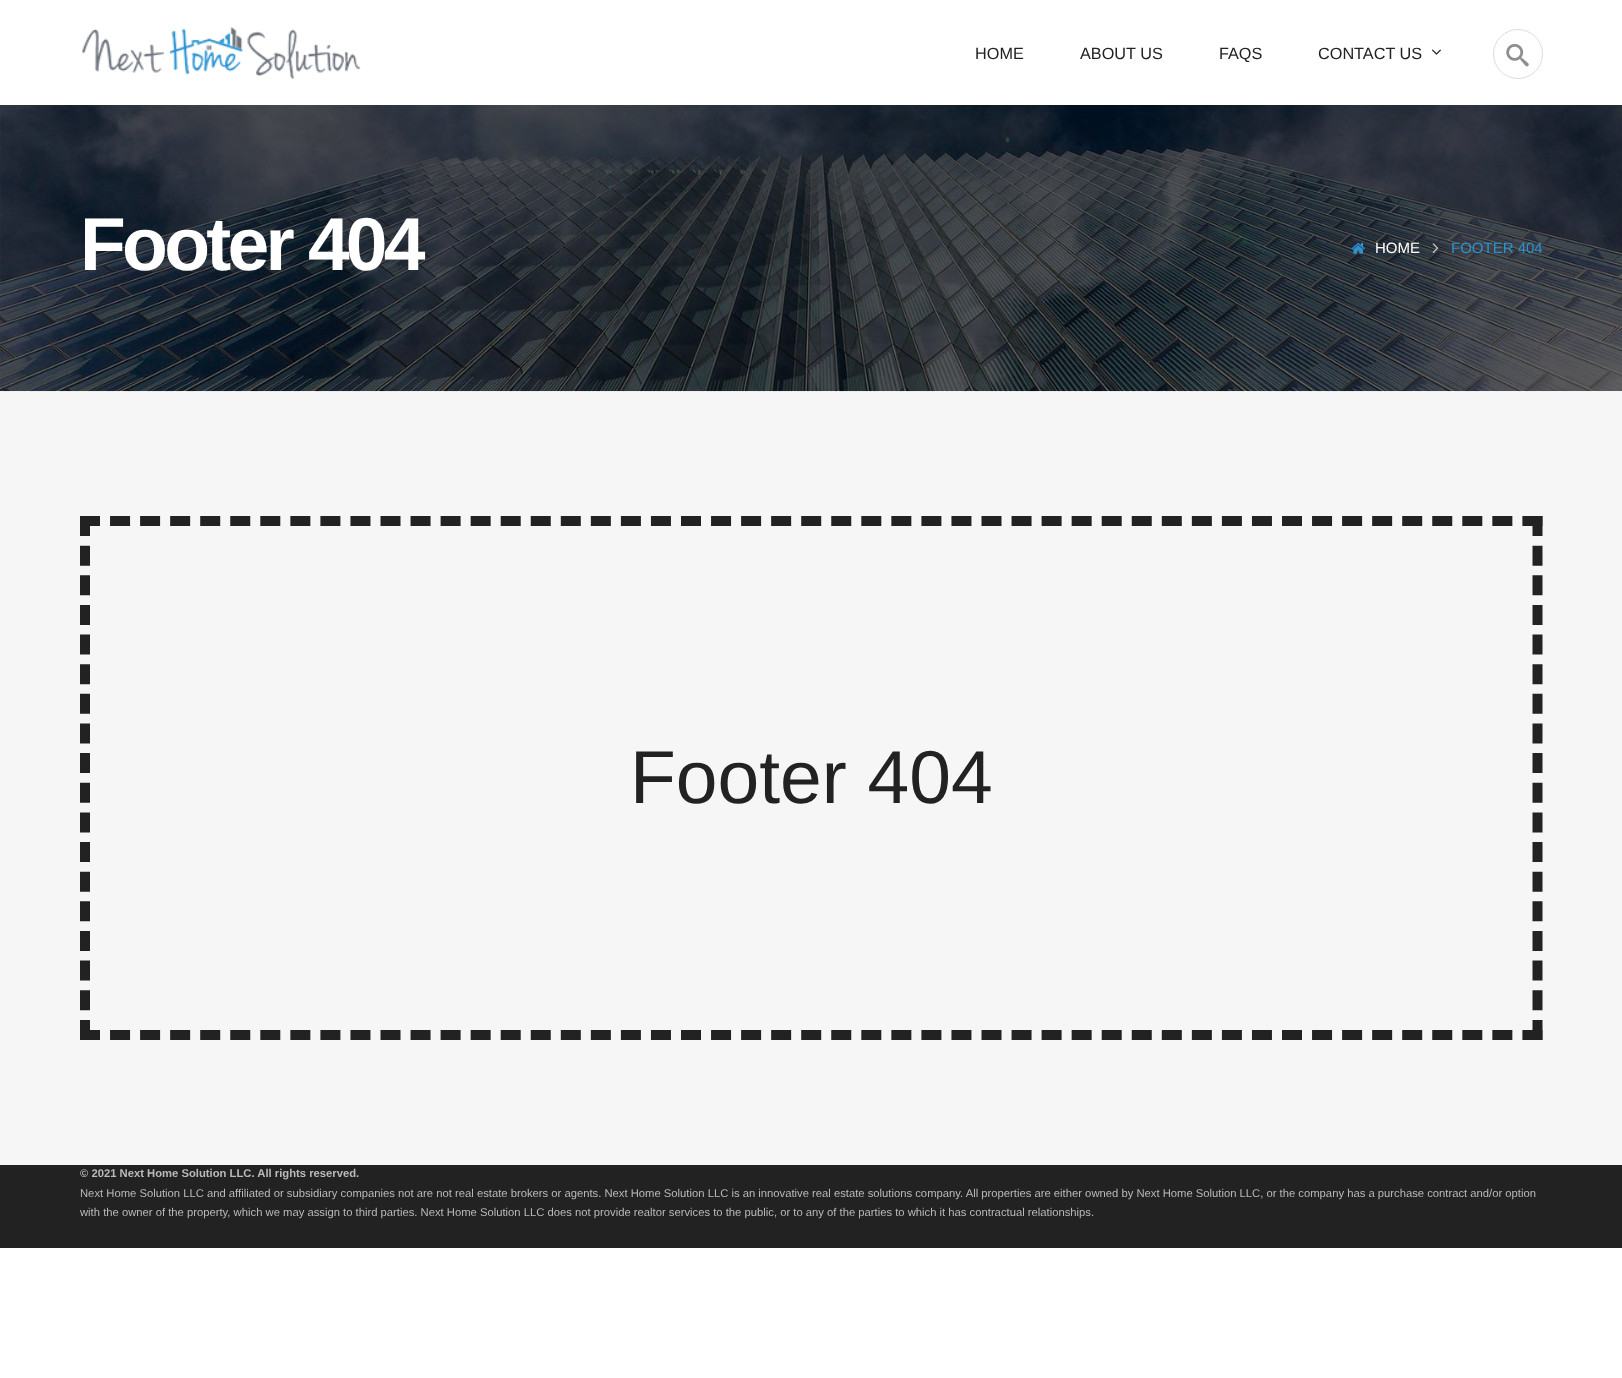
(async () => {
    const canvas = document.querySelector("canvas");
    canvas.width = 1622;
    canvas.height = 1378;
    const context = canvas.getContext("2d");
    context.miterLimit = 4;
    context.fontKerning = "normal";
    function write(s, x, y, font, color) {
        context.font = font;
        context.fillStyle = color;
        context.fillText(s, x, y);
    }
    function block(x, y, w, h, color) {
        context.fillStyle = color;
        context.fillRect(x, y, w, h);
    }
    async function photo(src, x, y, w, h) {
        const img = new Image();
        img.src = src;
        await img.decode();
        context.drawImage(img, x, y, w, h);
    }

    block(0, 0, 1622, 1378, "rgb(255, 255, 255)");
    await photo("media/1.png", 82, 27, 279, 52);
    write("HOME", 975, 59, "16.25px Liberation Sans", "rgb(34, 34, 34)");
    write("ABOUT US", 1080, 59, "16.25px Liberation Sans", "rgb(34, 34, 34)");
    write("FAQS", 1219, 59, "16.25px Liberation Sans", "rgb(34, 34, 34)");
    write("CONTACT US", 1318, 59, "16.25px Liberation Sans", "rgb(34, 34, 34)");
    await photo("media/2.png", 1432, 49, 9, 6);
    context.beginPath();
    context.arc(1518, 54, 24.5, 0, Math.PI * 2);
    context.strokeStyle = "rgb(221, 221, 221)";
    context.stroke();
    await photo("media/3.png", 1506, 43, 23, 24);
    block(0, 391, 1622, 774, "rgb(246, 246, 246)");
    await photo("media/4.png", 0, 105, 1622, 287);
    context.letterSpacing = "-3.75px";
    write("Footer 404", 80, 270, "bold 75px Liberation Sans", "rgb(255, 255, 255)");
    await photo("media/5.png", 1351, 243, 14, 11);
    context.letterSpacing = "0px";
    write("HOME", 1375, 253, "15px Liberation Sans", "rgb(255, 255, 255)");
    await photo("media/6.png", 1432, 243, 7, 10);
    write("FOOTER 404", 1451, 253, "15px Liberation Sans", "rgb(46, 146, 208)");
    context.beginPath();
    context.moveTo(80, 521);
    context.lineTo(1542.5, 521);
    context.strokeStyle = "rgb(34, 34, 34)";
    context.lineWidth = 10;
    context.setLineDash([20, 10.05]);
    context.stroke();
    context.beginPath();
    context.moveTo(1537.5, 516);
    context.lineTo(1537.5, 1040);
    context.setLineDash([20, 9.64]);
    context.stroke();
    context.beginPath();
    context.moveTo(80, 1035);
    context.lineTo(1542.5, 1035);
    context.setLineDash([20, 10.05]);
    context.stroke();
    context.beginPath();
    context.moveTo(85, 516);
    context.lineTo(85, 1040);
    context.setLineDash([20, 9.64]);
    context.stroke();
    write("Footer 404", 630, 803, "75px Liberation Sans", "rgb(34, 34, 34)");
    block(0, 1165, 1622, 83, "rgb(34, 34, 34)");
    write("© 2021 Next Home Solution LLC. All rights reserved.", 80, 1177, "bold 11.25px Liberation Sans", "rgb(186, 186, 186)");
    write("Next Home Solution LLC and affiliated or subsidiary companies not are not real estate brokers or agents. Next Home Solution LLC is an innovative real estate solutions company. All properties are either owned by Next Home Solution LLC, or the company has a purchase contract and/or option", 80, 1197, "11.25px Liberation Sans", "rgb(186, 186, 186)");
    write("with the owner of the property, which we may assign to third parties. Next Home Solution LLC does not provide realtor services to the public, or to any of the parties to which it has contractual relationships.", 80, 1216, "11.25px Liberation Sans", "rgb(186, 186, 186)");
})();
